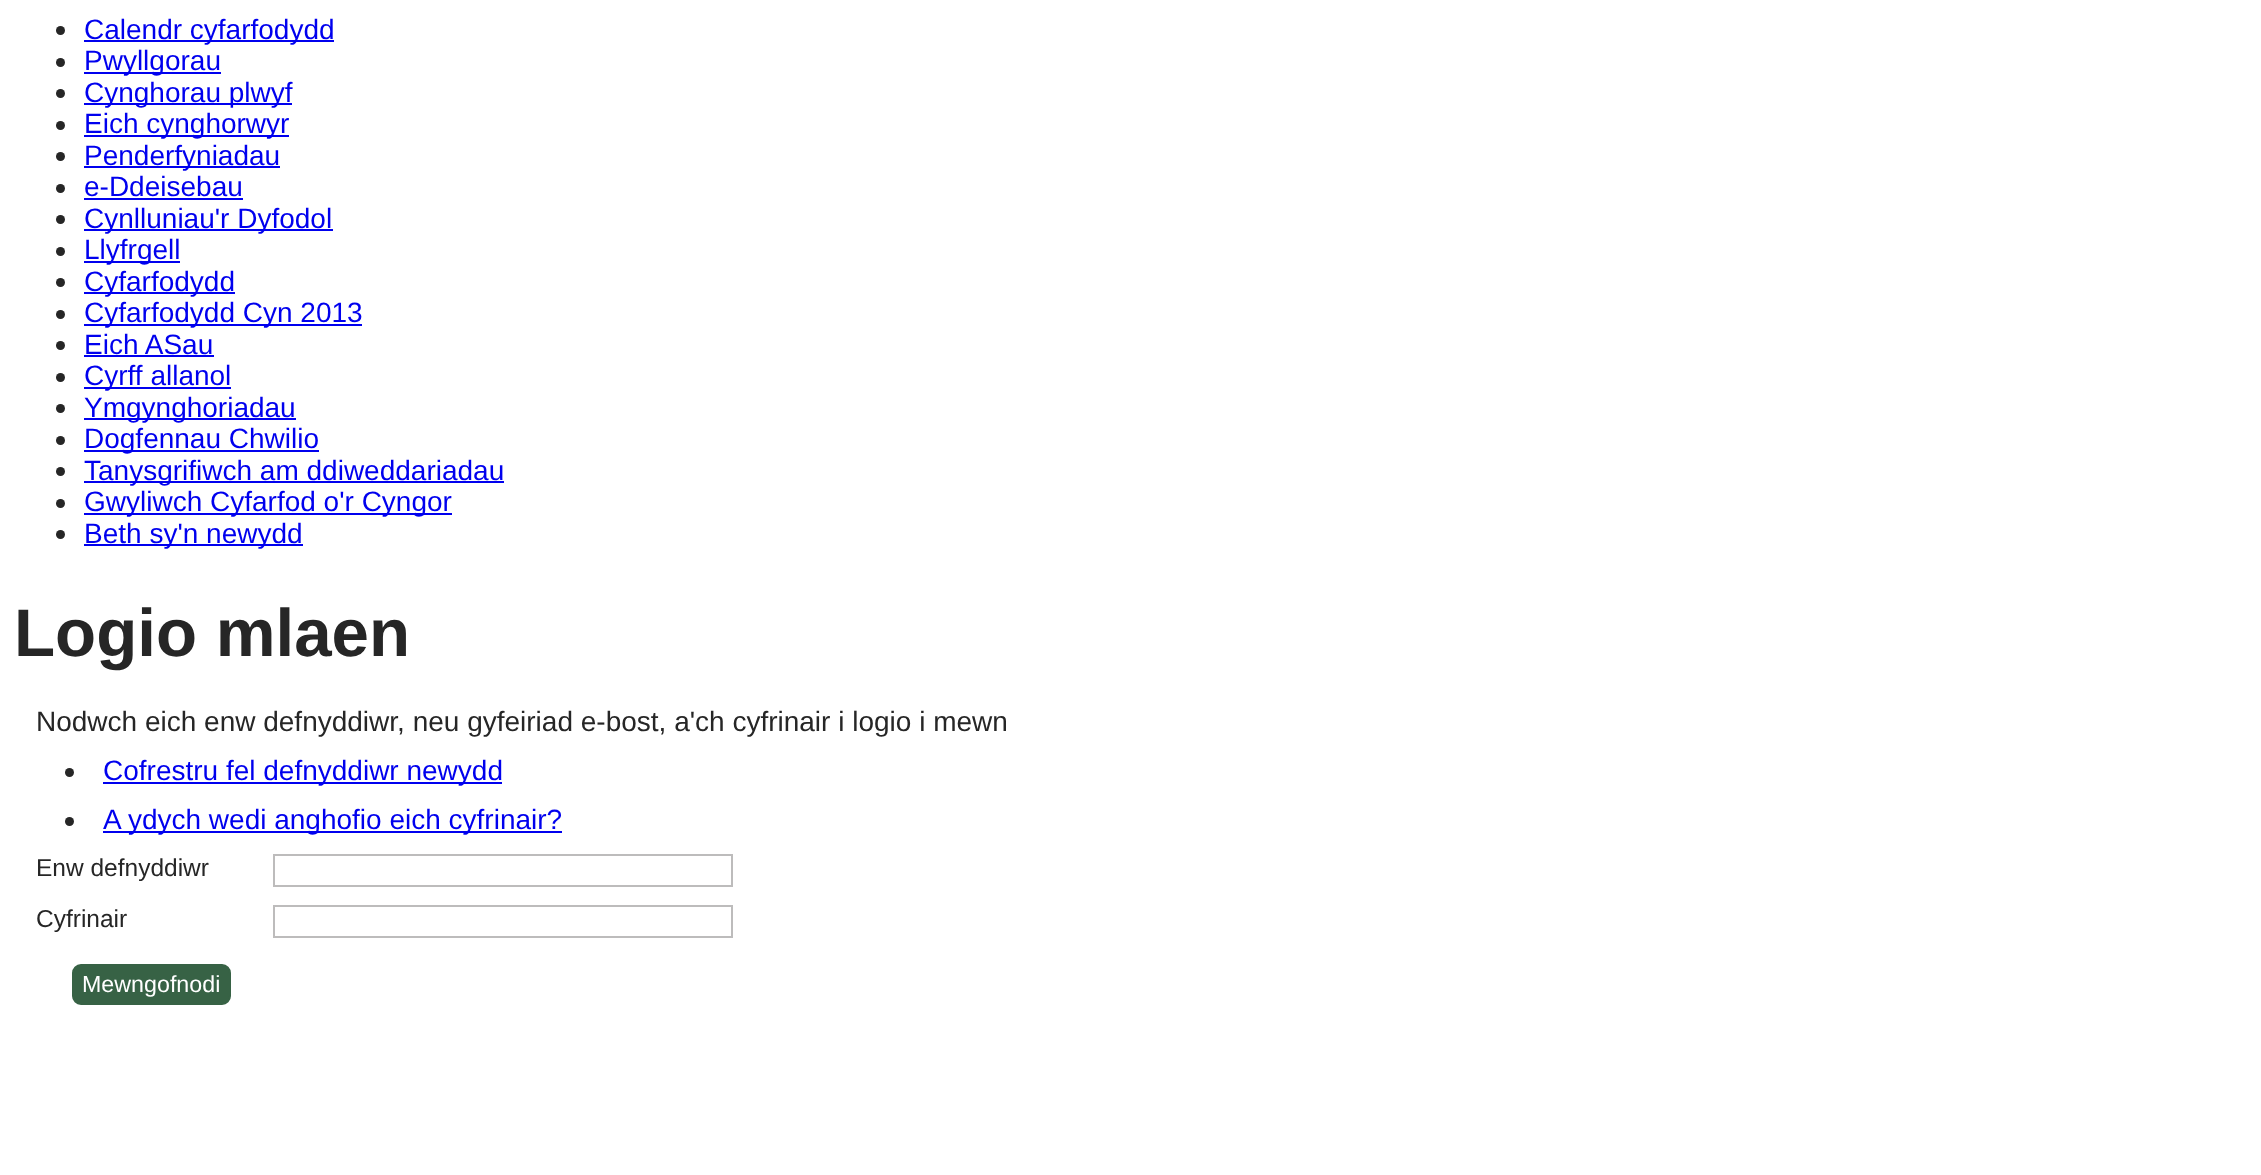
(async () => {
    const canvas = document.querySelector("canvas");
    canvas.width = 2261;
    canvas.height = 1175;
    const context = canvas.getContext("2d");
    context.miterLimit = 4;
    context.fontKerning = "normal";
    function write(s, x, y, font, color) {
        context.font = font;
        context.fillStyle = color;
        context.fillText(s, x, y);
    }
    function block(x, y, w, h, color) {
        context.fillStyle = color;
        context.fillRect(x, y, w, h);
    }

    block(0, 0, 2261, 1175, "rgb(255, 255, 255)");
    context.fillStyle = "rgb(38, 38, 38)";
    context.beginPath();
    context.arc(60.5, 30.5, 4.5, 0, Math.PI * 2);
    context.fill();
    block(84, 40, 250, 2, "rgb(0, 0, 238)");
    write("Calendr cyfarfodydd", 84, 39, "28px Liberation Sans", "rgb(0, 0, 238)");
    context.fillStyle = "rgb(38, 38, 38)";
    context.beginPath();
    context.arc(60.5, 62.5, 4.5, 0, Math.PI * 2);
    context.fill();
    block(84, 72, 137, 2, "rgb(0, 0, 238)");
    write("Pwyllgorau", 84, 70, "28px Liberation Sans", "rgb(0, 0, 238)");
    context.fillStyle = "rgb(38, 38, 38)";
    context.beginPath();
    context.arc(60.5, 93.5, 4.5, 0, Math.PI * 2);
    context.fill();
    block(84, 103, 208, 2, "rgb(0, 0, 238)");
    write("Cynghorau plwyf", 84, 102, "28px Liberation Sans", "rgb(0, 0, 238)");
    context.fillStyle = "rgb(38, 38, 38)";
    context.beginPath();
    context.arc(60.5, 125.5, 4.5, 0, Math.PI * 2);
    context.fill();
    block(84, 135, 205, 2, "rgb(0, 0, 238)");
    write("Eich cynghorwyr", 84, 133, "28px Liberation Sans", "rgb(0, 0, 238)");
    context.fillStyle = "rgb(38, 38, 38)";
    context.beginPath();
    context.arc(60.5, 156.5, 4.5, 0, Math.PI * 2);
    context.fill();
    block(84, 166, 196, 2, "rgb(0, 0, 238)");
    write("Penderfyniadau", 84, 165, "28px Liberation Sans", "rgb(0, 0, 238)");
    context.fillStyle = "rgb(38, 38, 38)";
    context.beginPath();
    context.arc(60.5, 188.5, 4.5, 0, Math.PI * 2);
    context.fill();
    write("e-Ddeisebau", 84, 196, "28px Liberation Sans", "rgb(0, 0, 238)");
    block(84, 198, 159, 2, "rgb(0, 0, 238)");
    context.fillStyle = "rgb(38, 38, 38)";
    context.beginPath();
    context.arc(60.5, 219.5, 4.5, 0, Math.PI * 2);
    context.fill();
    block(84, 229, 249, 2, "rgb(0, 0, 238)");
    write("Cynlluniau'r Dyfodol", 84, 228, "28px Liberation Sans", "rgb(0, 0, 238)");
    context.fillStyle = "rgb(38, 38, 38)";
    context.beginPath();
    context.arc(60.5, 251.5, 4.5, 0, Math.PI * 2);
    context.fill();
    block(84, 261, 96, 2, "rgb(0, 0, 238)");
    write("Llyfrgell", 84, 259, "28px Liberation Sans", "rgb(0, 0, 238)");
    context.fillStyle = "rgb(38, 38, 38)";
    context.beginPath();
    context.arc(60.5, 282.5, 4.5, 0, Math.PI * 2);
    context.fill();
    block(84, 292, 151, 2, "rgb(0, 0, 238)");
    write("Cyfarfodydd", 84, 291, "28px Liberation Sans", "rgb(0, 0, 238)");
    context.fillStyle = "rgb(38, 38, 38)";
    context.beginPath();
    context.arc(60.5, 314.5, 4.5, 0, Math.PI * 2);
    context.fill();
    block(84, 324, 278, 2, "rgb(0, 0, 238)");
    write("Cyfarfodydd Cyn 2013", 84, 322, "28px Liberation Sans", "rgb(0, 0, 238)");
    context.fillStyle = "rgb(38, 38, 38)";
    context.beginPath();
    context.arc(60.5, 345.5, 4.5, 0, Math.PI * 2);
    context.fill();
    write("Eich ASau", 84, 354, "28px Liberation Sans", "rgb(0, 0, 238)");
    block(84, 355, 130, 2, "rgb(0, 0, 238)");
    context.fillStyle = "rgb(38, 38, 38)";
    context.beginPath();
    context.arc(60.5, 377.5, 4.5, 0, Math.PI * 2);
    context.fill();
    block(84, 387, 147, 2, "rgb(0, 0, 238)");
    write("Cyrff allanol", 84, 385, "28px Liberation Sans", "rgb(0, 0, 238)");
    context.fillStyle = "rgb(38, 38, 38)";
    context.beginPath();
    context.arc(60.5, 408.5, 4.5, 0, Math.PI * 2);
    context.fill();
    block(84, 418, 212, 2, "rgb(0, 0, 238)");
    write("Ymgynghoriadau", 84, 417, "28px Liberation Sans", "rgb(0, 0, 238)");
    context.fillStyle = "rgb(38, 38, 38)";
    context.beginPath();
    context.arc(60.5, 440.5, 4.5, 0, Math.PI * 2);
    context.fill();
    block(84, 450, 235, 2, "rgb(0, 0, 238)");
    write("Dogfennau Chwilio", 84, 448, "28px Liberation Sans", "rgb(0, 0, 238)");
    context.fillStyle = "rgb(38, 38, 38)";
    context.beginPath();
    context.arc(60.5, 471.5, 4.5, 0, Math.PI * 2);
    context.fill();
    block(84, 481, 420, 2, "rgb(0, 0, 238)");
    write("Tanysgrifiwch am ddiweddariadau", 84, 480, "28px Liberation Sans", "rgb(0, 0, 238)");
    context.fillStyle = "rgb(38, 38, 38)";
    context.beginPath();
    context.arc(60.5, 503.5, 4.5, 0, Math.PI * 2);
    context.fill();
    block(84, 513, 368, 2, "rgb(0, 0, 238)");
    write("Gwyliwch Cyfarfod o'r Cyngor", 84, 511, "28px Liberation Sans", "rgb(0, 0, 238)");
    context.fillStyle = "rgb(38, 38, 38)";
    context.beginPath();
    context.arc(60.5, 534.5, 4.5, 0, Math.PI * 2);
    context.fill();
    block(84, 544, 219, 2, "rgb(0, 0, 238)");
    write("Beth sy'n newydd", 84, 543, "28px Liberation Sans", "rgb(0, 0, 238)");
    write("Logio mlaen", 14, 656, "bold 67.25px Liberation Sans", "rgb(38, 38, 38)");
    write("Nodwch eich enw defnyddiwr, neu gyfeiriad e-bost, a'ch cyfrinair i logio i mewn", 36, 731, "28px Liberation Sans", "rgb(38, 38, 38)");
    context.beginPath();
    context.arc(69.5, 772.5, 4.5, 0, Math.PI * 2);
    context.fill();
    block(103, 782, 399, 2, "rgb(0, 0, 238)");
    write("Cofrestru fel defnyddiwr newydd", 103, 780, "28px Liberation Sans", "rgb(0, 0, 238)");
    context.fillStyle = "rgb(38, 38, 38)";
    context.beginPath();
    context.arc(69.5, 821.5, 4.5, 0, Math.PI * 2);
    context.fill();
    block(103, 831, 459, 2, "rgb(0, 0, 238)");
    write("A ydych wedi anghofio eich cyfrinair?", 103, 829, "28px Liberation Sans", "rgb(0, 0, 238)");
    write("Enw defnyddiwr", 36, 876, "24.5px Liberation Sans", "rgb(38, 38, 38)");
    context.strokeStyle = "rgb(189, 188, 188)";
    context.lineWidth = 2;
    context.strokeRect(274, 855, 458, 31);
    write("Cyfrinair", 36, 927, "24.5px Liberation Sans", "rgb(38, 38, 38)");
    context.strokeRect(274, 906, 458, 31);
    context.fillStyle = "rgb(55, 98, 69)";
    context.beginPath();
    context.roundRect(73, 965, 157, 39, 8);
    context.fill();
    context.strokeStyle = "rgb(55, 98, 69)";
    context.stroke();
    write("Mewngofnodi", 82, 992, "23.25px Liberation Sans", "rgb(255, 255, 255)");
})();
